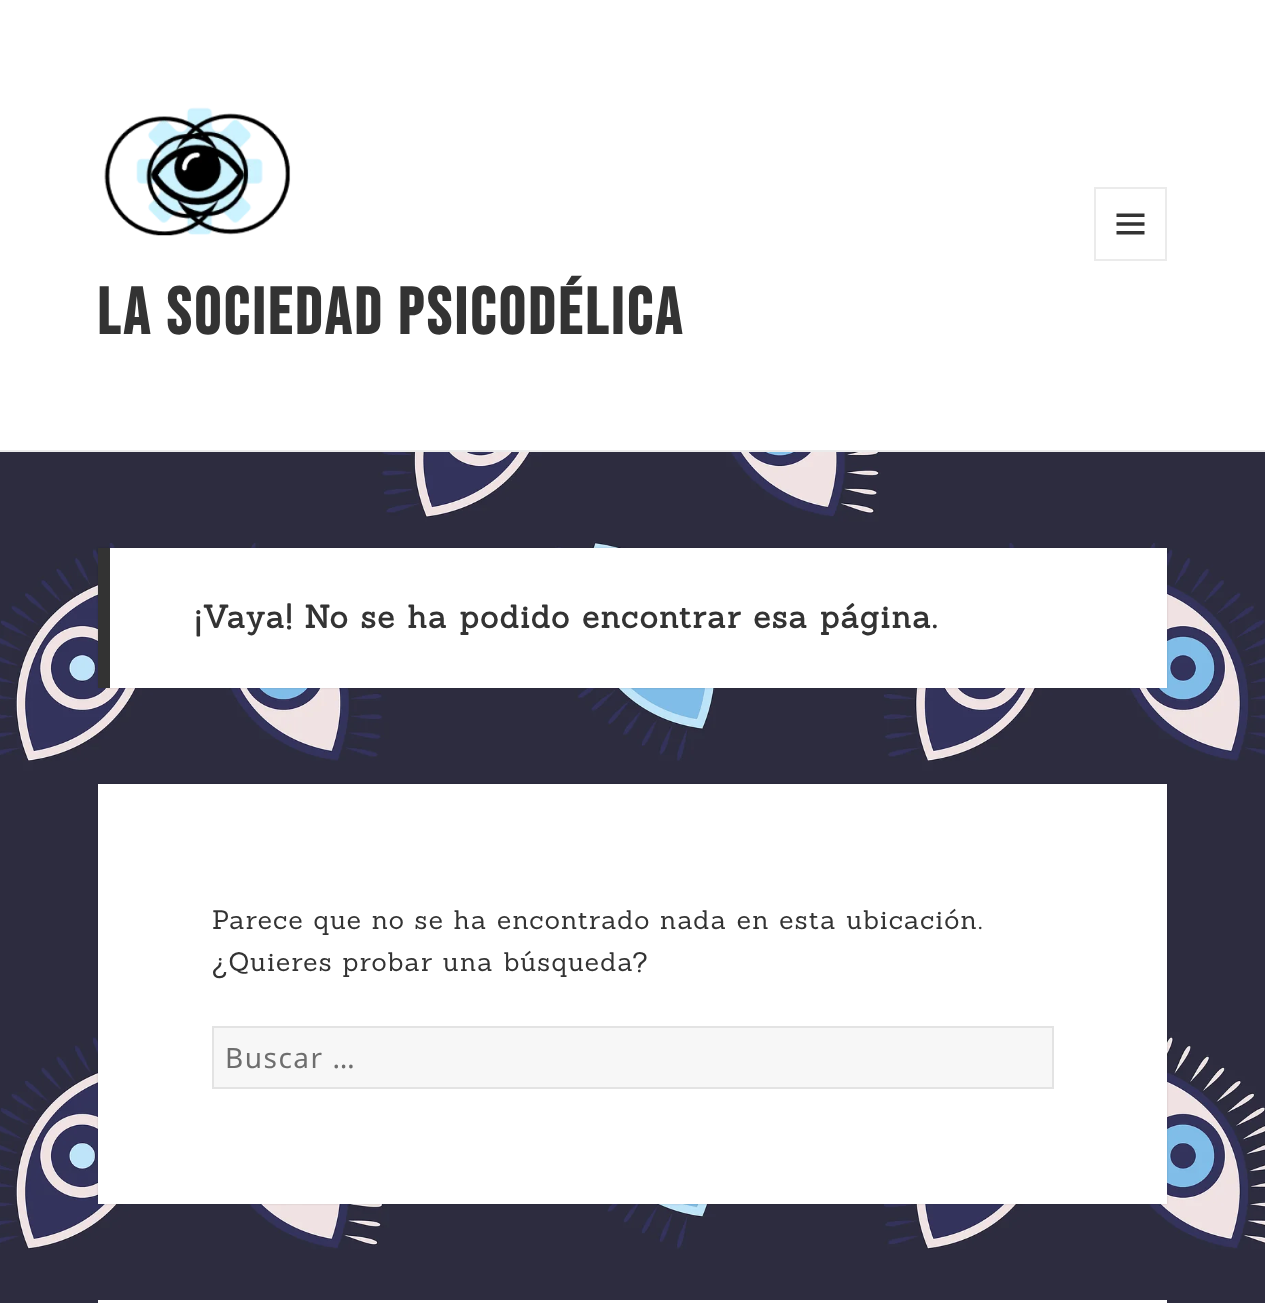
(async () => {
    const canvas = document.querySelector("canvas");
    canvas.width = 1265;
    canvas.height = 1303;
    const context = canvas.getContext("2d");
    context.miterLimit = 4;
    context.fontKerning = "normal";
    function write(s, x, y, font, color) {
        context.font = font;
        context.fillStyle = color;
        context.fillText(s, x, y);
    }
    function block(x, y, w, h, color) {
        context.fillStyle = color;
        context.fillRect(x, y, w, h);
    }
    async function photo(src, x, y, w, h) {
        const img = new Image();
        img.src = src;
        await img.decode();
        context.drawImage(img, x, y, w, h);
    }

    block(0, 0, 1265, 1303, "rgb(255, 255, 255)");
    await photo("media/1.png", 0, 452, 1265, 851);
    block(0, 450, 1265, 2, "rgb(235, 235, 235)");
    await photo("media/2.png", 104, 107, 187, 129);
    context.strokeStyle = "rgb(235, 235, 235)";
    context.lineWidth = 2;
    context.strokeRect(1095, 188, 71, 72);
    await photo("media/3.png", 1116, 213, 29, 22);
    context.letterSpacing = "3.25px";
    write("La Sociedad Psicodélica", 97, 334, "bold 65.6px Bebas Neue", "rgb(51, 51, 51)");
    context.fillStyle = "rgba(0, 0, 0, 0.15)";
    context.filter = "blur(1px)";
    context.beginPath();
    context.rect(98, 548, 1069, 140);
    context.fill();
    context.filter = "none";
    block(110, 548, 1057, 140, "rgb(255, 255, 255)");
    block(98, 548, 12, 140, "rgb(51, 51, 51)");
    context.letterSpacing = "1.55px";
    write("¡Vaya! No se ha podido encontrar esa página.", 195, 628, "bold 31.5px Sanchez", "rgb(51, 51, 51)");
    context.fillStyle = "rgba(0, 0, 0, 0.15)";
    context.filter = "blur(1px)";
    context.beginPath();
    context.rect(98, 784, 1069, 420);
    context.fill();
    context.filter = "none";
    block(98, 784, 1069, 420, "rgb(255, 255, 255)");
    context.letterSpacing = "1.3px";
    write("Parece que no se ha encontrado nada en esta ubicación.", 212, 929, "26.25px Sanchez", "rgb(51, 51, 51)");
    write("¿Quieres probar una búsqueda?", 212, 971, "26.25px Sanchez", "rgb(51, 51, 51)");
    context.fillStyle = "rgb(247, 247, 247)";
    context.beginPath();
    context.rect(213, 1027, 840, 61);
    context.fill();
    context.strokeStyle = "rgb(227, 227, 227)";
    context.stroke();
    context.letterSpacing = "1.5px";
    write("Buscar …", 225, 1068, "28px Noto Sans", "rgb(110, 110, 110)");
    block(98, 1300, 1069, 3, "rgb(255, 255, 255)");
})();
